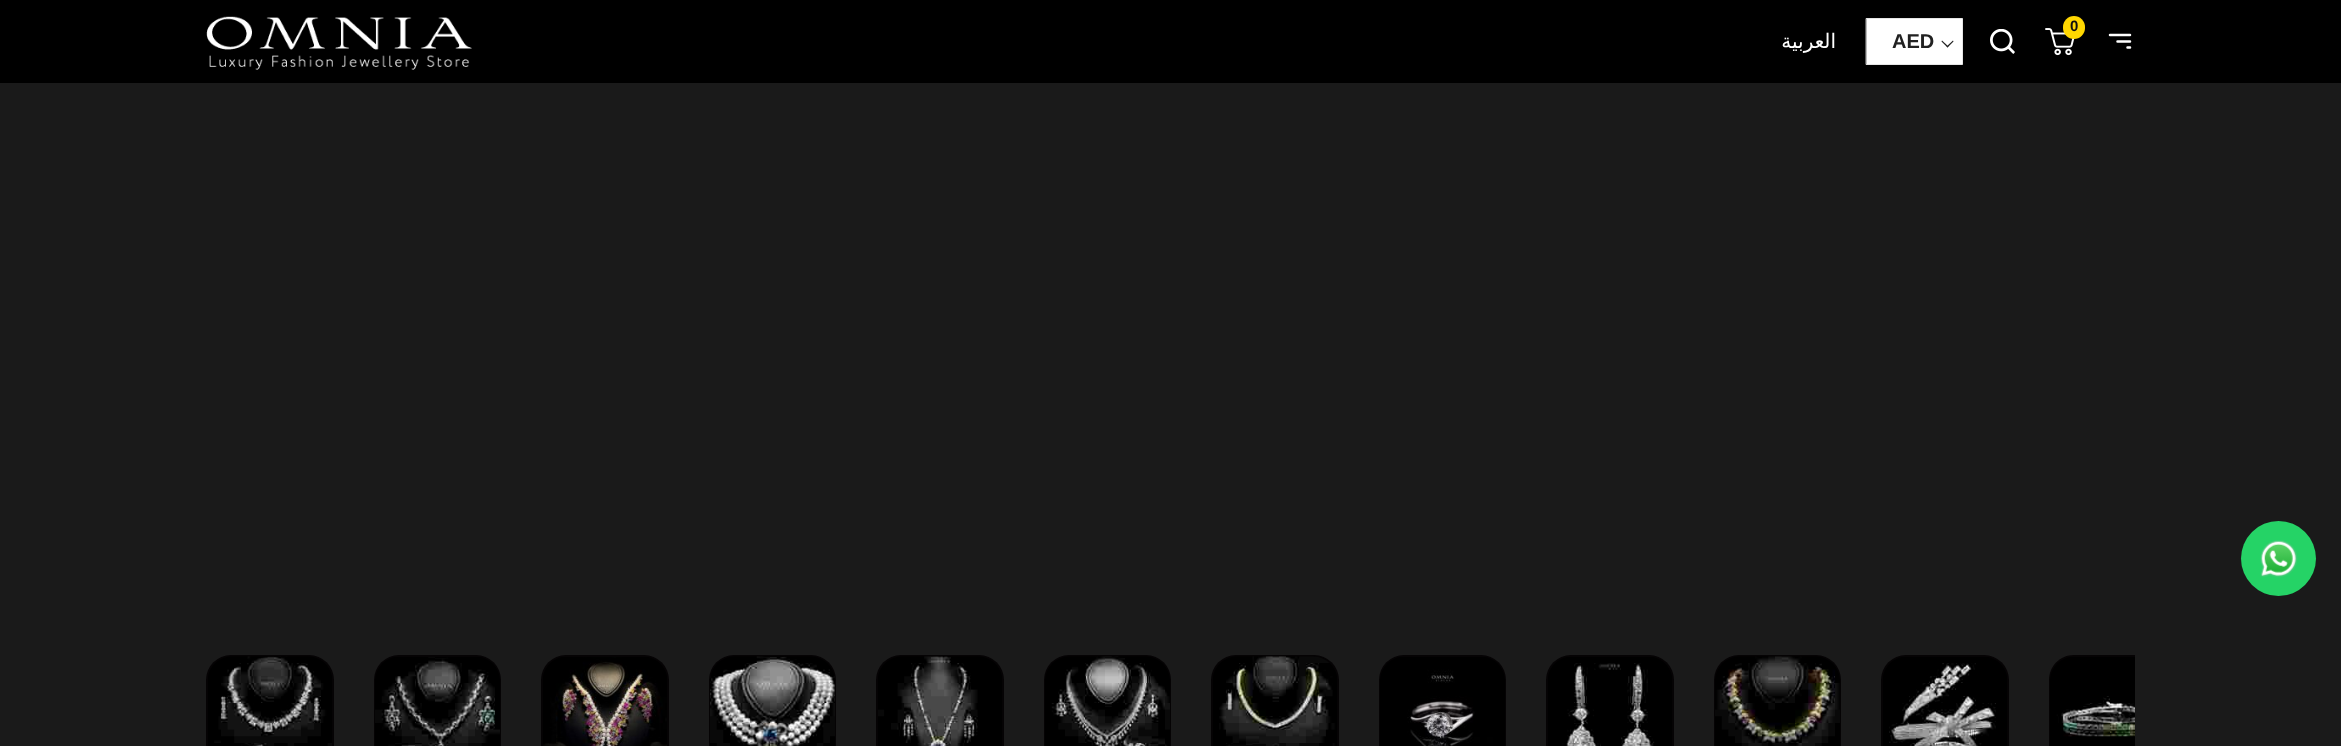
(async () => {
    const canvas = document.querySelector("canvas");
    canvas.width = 2341;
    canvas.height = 746;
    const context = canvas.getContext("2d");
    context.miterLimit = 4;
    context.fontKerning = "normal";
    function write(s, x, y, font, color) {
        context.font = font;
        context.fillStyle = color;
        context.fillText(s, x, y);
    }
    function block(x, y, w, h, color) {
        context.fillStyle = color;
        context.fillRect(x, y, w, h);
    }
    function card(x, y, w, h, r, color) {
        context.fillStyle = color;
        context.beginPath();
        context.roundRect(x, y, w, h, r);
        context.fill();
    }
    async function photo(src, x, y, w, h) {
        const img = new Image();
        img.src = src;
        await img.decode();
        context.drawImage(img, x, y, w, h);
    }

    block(0, 0, 2341, 746, "rgb(26, 26, 26)");
    block(0, 0, 2341, 83, "rgb(0, 0, 0)");
    await photo("media/1.png", 2045, 28, 30, 28);
    card(2063, 16, 22, 23, 11, "rgb(255, 215, 0)");
    write("0", 2070, 31, "bold 15px Liberation Sans", "rgb(15, 15, 15)");
    context.beginPath();
    context.moveTo(2130, 35);
    context.lineTo(2110, 35);
    context.moveTo(2130, 41.5);
    context.lineTo(2117.5, 41.5);
    context.moveTo(2130, 47.5);
    context.lineTo(2127.5, 47.5);
    context.strokeStyle = "rgb(255, 255, 255)";
    context.lineWidth = 2.5;
    context.lineCap = "round";
    context.lineJoin = "round";
    context.stroke();
    await photo("media/2.png", 1990, 29, 25, 25);
    context.fillStyle = "rgb(255, 255, 255)";
    context.beginPath();
    context.rect(1866.5, 18.5, 96, 46);
    context.fill();
    context.strokeStyle = "rgb(229, 229, 229)";
    context.lineWidth = 1;
    context.lineJoin = "miter";
    context.stroke();
    context.fillStyle = "rgb(33, 33, 33)";
    context.beginPath();
    context.moveTo(1953, 40.5);
    context.lineTo(1953.5, 41.5);
    context.lineTo(1947.5, 47.5);
    context.lineTo(1946.5, 46.5);
    context.closePath();
    context.fill();
    context.beginPath();
    context.moveTo(1942, 40.5);
    context.lineTo(1948.5, 46.5);
    context.lineTo(1947.5, 47.5);
    context.lineTo(1941.5, 41.5);
    context.closePath();
    context.fill();
    write("AED", 1892, 48, "bold 20px Liberation Sans", "rgb(33, 33, 33)");
    context.direction = "rtl";
    write("العربية", 1836, 48, "20px DejaVu Sans", "rgb(255, 255, 255)");
    await photo("media/3.png", 206, 16, 266, 54);
    context.fillStyle = "rgb(5, 3, 4)";
    context.beginPath();
    context.moveTo(2074, 655);
    context.lineTo(2135, 655);
    context.lineTo(2135, 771);
    context.lineTo(2074, 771);
    context.bezierCurveTo(2060, 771, 2049, 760, 2049, 746);
    context.lineTo(2049, 680);
    context.bezierCurveTo(2049, 666, 2060, 655, 2074, 655);
    context.closePath();
    context.fill();
    await photo("media/4.png", 2050, 657, 85, 89);
    card(1881, 655, 128, 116, 25, "rgb(5, 3, 4)");
    await photo("media/5.png", 1883, 657, 124, 89);
    card(1714, 655, 127, 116, 25, "rgb(5, 3, 4)");
    await photo("media/6.png", 1715, 656, 125, 90);
    card(1546, 655, 128, 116, 25, "rgb(5, 3, 4)");
    await photo("media/7.png", 1548, 657, 124, 89);
    card(1379, 655, 127, 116, 25, "rgb(5, 3, 4)");
    await photo("media/8.png", 1380, 657, 125, 89);
    card(1211, 655, 128, 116, 25, "rgb(5, 3, 4)");
    await photo("media/9.png", 1213, 656, 124, 90);
    card(1044, 655, 127, 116, 25, "rgb(5, 3, 4)");
    await photo("media/10.png", 1045, 656, 125, 90);
    card(876, 655, 128, 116, 25, "rgb(5, 3, 4)");
    await photo("media/11.png", 878, 656, 124, 90);
    card(709, 655, 127, 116, 25, "rgb(5, 3, 4)");
    await photo("media/12.png", 710, 656, 125, 90);
    card(541, 655, 128, 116, 25, "rgb(5, 3, 4)");
    await photo("media/13.png", 543, 657, 124, 89);
    card(374, 655, 127, 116, 25, "rgb(5, 3, 4)");
    await photo("media/14.png", 375, 657, 125, 89);
    card(206, 655, 128, 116, 25, "rgb(5, 3, 4)");
    await photo("media/15.png", 208, 656, 124, 90);
    context.fillStyle = "rgb(37, 211, 102)";
    context.beginPath();
    context.arc(2278.5, 558.5, 37.5, 0, Math.PI * 2);
    context.fill();
    await photo("media/16.png", 2260, 540, 38, 38);
})();
